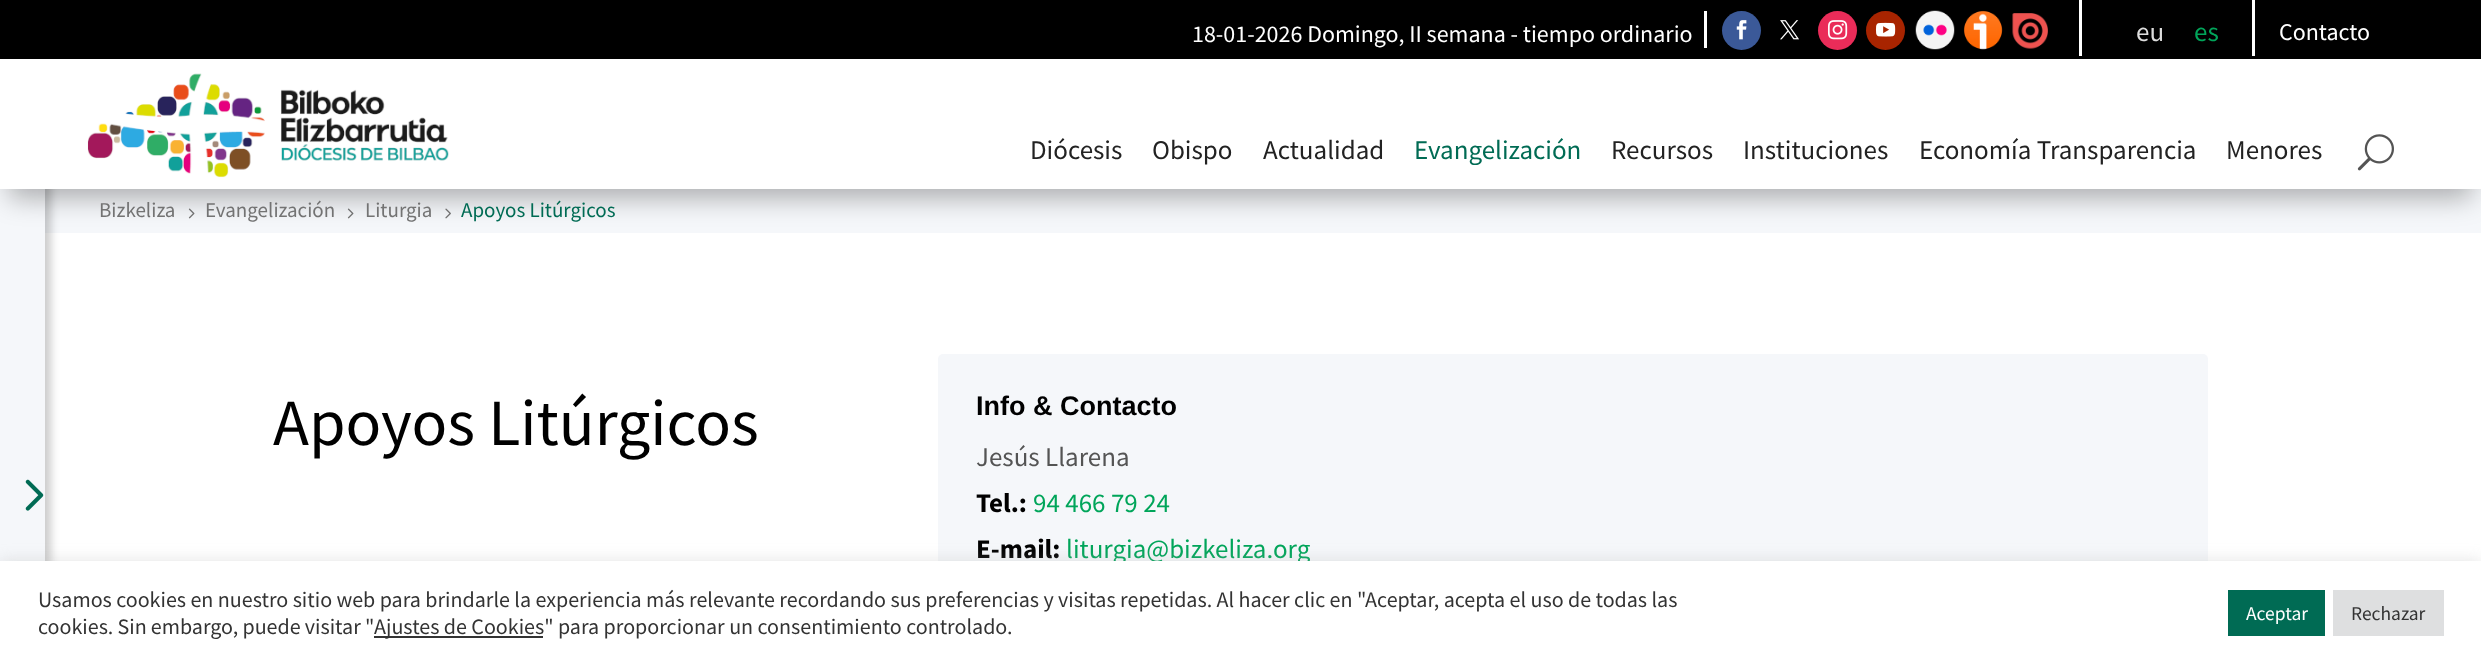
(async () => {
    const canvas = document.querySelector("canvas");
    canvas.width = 2481;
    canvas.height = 664;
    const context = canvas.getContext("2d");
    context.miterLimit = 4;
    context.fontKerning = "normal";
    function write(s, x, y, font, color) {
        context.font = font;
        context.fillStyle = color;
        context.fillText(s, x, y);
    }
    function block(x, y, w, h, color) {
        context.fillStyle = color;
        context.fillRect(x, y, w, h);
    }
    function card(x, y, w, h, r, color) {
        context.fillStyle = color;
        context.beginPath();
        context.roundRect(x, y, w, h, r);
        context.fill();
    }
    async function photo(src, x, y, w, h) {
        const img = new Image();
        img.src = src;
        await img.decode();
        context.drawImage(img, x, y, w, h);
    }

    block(0, 0, 2481, 664, "rgb(255, 255, 255)");
    block(45, 189, 2436, 44, "rgb(245, 247, 250)");
    context.fillStyle = "rgba(0, 0, 0, 0.2)";
    context.filter = "blur(4.5px)";
    context.beginPath();
    context.rect(-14, -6, 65, 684);
    context.fill();
    context.filter = "none";
    block(0, 189, 45, 372, "rgb(245, 247, 250)");
    await photo("media/1.png", 25, 479, 19, 32);
    block(0, 0, 2481, 59, "rgb(0, 0, 0)");
    block(1704, 11, 3, 37, "rgb(255, 255, 255)");
    write("18-01-2026 Domingo, II semana - tiempo ordinario", 1192, 42, "24px Source Sans Pro", "rgb(255, 255, 255)");
    context.fillStyle = "rgb(59, 89, 152)";
    context.beginPath();
    context.arc(1741.5, 30.5, 19.5, 0, Math.PI * 2);
    context.fill();
    await photo("media/2.png", 1736, 20, 11, 20);
    await photo("media/3.png", 1780, 20, 19, 20);
    context.fillStyle = "rgb(234, 44, 89)";
    context.beginPath();
    context.arc(1837.5, 30.5, 19.5, 0, Math.PI * 2);
    context.fill();
    await photo("media/4.png", 1827, 20, 21, 20);
    context.fillStyle = "rgb(168, 36, 0)";
    context.beginPath();
    context.arc(1885.5, 30.5, 19.5, 0, Math.PI * 2);
    context.fill();
    await photo("media/5.png", 1875, 22, 21, 15);
    await photo("media/6.png", 1915, 10, 40, 40);
    await photo("media/7.png", 1963, 10, 40, 40);
    await photo("media/8.png", 2012, 13, 36, 36);
    block(2252, 0, 3, 56, "rgb(255, 255, 255)");
    block(2079, 0, 3, 56, "rgb(255, 255, 255)");
    write("eu", 2136, 41, "27px Source Sans Pro", "rgb(221, 221, 221)");
    write("es", 2194, 41, "27px Source Sans Pro", "rgb(0, 165, 90)");
    write("Contacto", 2279, 40, "24px Source Sans Pro", "rgb(255, 255, 255)");
    await photo("media/11.png", 188, 208, 7, 11);
    await photo("media/11.png", 347, 208, 7, 11);
    await photo("media/12.png", 445, 208, 6, 11);
    context.fillStyle = "rgba(0, 0, 0, 0.3)";
    context.filter = "blur(13.5px)";
    context.beginPath();
    context.rect(9, 86, 2463, 112);
    context.fill();
    context.filter = "none";
    block(0, 59, 2481, 130, "rgb(255, 255, 255)");
    await photo("media/9.png", 87, 73, 362, 105);
    write("Diócesis", 1030, 159, "27px Source Sans Pro", "rgb(34, 34, 34)");
    write("Obispo", 1152, 159, "27px Source Sans Pro", "rgb(34, 34, 34)");
    write("Actualidad", 1263, 159, "27px Source Sans Pro", "rgb(34, 34, 34)");
    write("Evangelización", 1414, 159, "27px Source Sans Pro", "rgb(0, 107, 84)");
    write("Recursos", 1611, 159, "27px Source Sans Pro", "rgb(34, 34, 34)");
    write("Instituciones", 1743, 159, "27px Source Sans Pro", "rgb(34, 34, 34)");
    write("Economía Transparencia", 1919, 159, "27px Source Sans Pro", "rgb(34, 34, 34)");
    write("Menores", 2226, 159, "27px Source Sans Pro", "rgb(34, 34, 34)");
    await photo("media/10.png", 2357, 134, 37, 37);
    write("Bizkeliza", 99, 217, "21px Source Sans Pro", "rgb(115, 115, 115)");
    write("Evangelización", 205, 217, "21px Source Sans Pro", "rgb(115, 115, 115)");
    write("Liturgia", 365, 217, "21px Source Sans Pro", "rgb(115, 115, 115)");
    write("Apoyos Litúrgicos", 461, 217, "21px Source Sans Pro", "rgb(0, 107, 84)");
    write("Apoyos Litúrgicos", 273, 445, "66px Source Sans Pro", "rgb(0, 0, 0)");
    card(938, 354, 1270, 303, 5, "rgb(245, 247, 250)");
    write("Info & Contacto", 976, 415, "bold 27px Liberation Sans", "rgb(0, 0, 0)");
    write("Jesús Llarena", 976, 466, "27px Source Sans Pro", "rgb(84, 84, 84)");
    write("Tel.:", 976, 512, "bold 27px Source Sans Pro", "rgb(0, 0, 0)");
    write("94 466 79 24", 1033, 512, "27px Source Sans Pro", "rgb(0, 165, 90)");
    write("E-mail:", 976, 558, "bold 27px Source Sans Pro", "rgb(0, 0, 0)");
    write("liturgia@bizkeliza.org", 1066, 558, "27px Source Sans Pro", "rgb(0, 165, 90)");
    context.fillStyle = "rgba(172, 171, 171, 0.3)";
    context.filter = "blur(7.5px)";
    context.beginPath();
    context.rect(0, 560, 2481, 103);
    context.fill();
    context.filter = "none";
    block(0, 561, 2481, 103, "rgb(255, 255, 255)");
    write("Usamos cookies en nuestro sitio web para brindarle la experiencia más relevante recordando sus preferencias y visitas repetidas. Al hacer clic en \"Aceptar, acepta el uso de todas las", 38, 607, "22px Source Sans Pro", "rgb(51, 51, 51)");
    context.wordSpacing = "-0.25px";
    write("cookies. Sin embargo, puede visitar \"", 38, 634, "22px Source Sans Pro", "rgb(51, 51, 51)");
    block(374, 636, 169, 2, "rgb(51, 51, 51)");
    context.wordSpacing = "0px";
    write("Ajustes de Cookies\" para proporcionar un consentimiento controlado.", 374, 634, "22px Source Sans Pro", "rgb(51, 51, 51)");
    block(2228, 590, 97, 46, "rgb(0, 107, 84)");
    write("Aceptar", 2246, 620, "19.5px Source Sans Pro", "rgb(255, 255, 255)");
    block(2333, 590, 111, 46, "rgb(222, 223, 224)");
    write("Rechazar", 2351, 620, "19.5px Source Sans Pro", "rgb(51, 51, 51)");
})();
